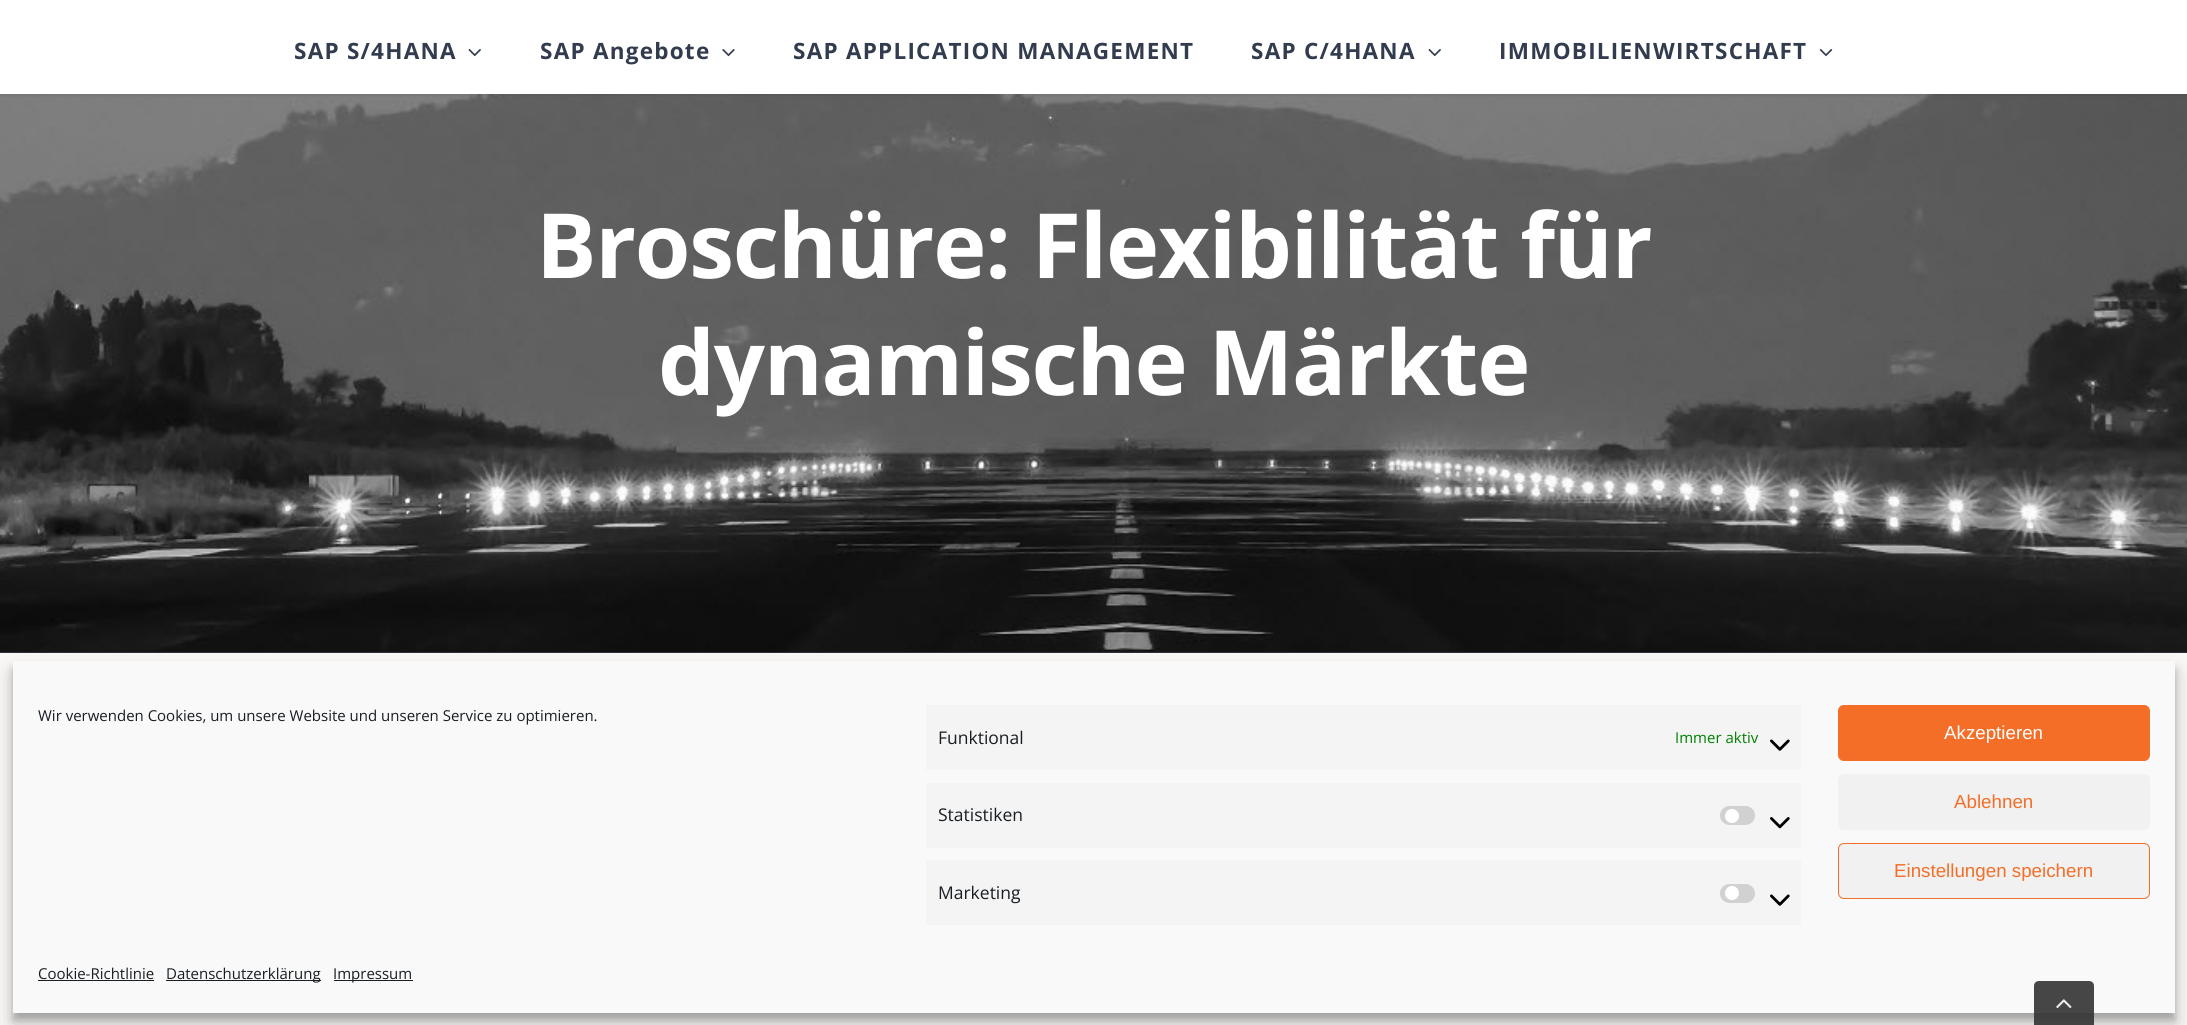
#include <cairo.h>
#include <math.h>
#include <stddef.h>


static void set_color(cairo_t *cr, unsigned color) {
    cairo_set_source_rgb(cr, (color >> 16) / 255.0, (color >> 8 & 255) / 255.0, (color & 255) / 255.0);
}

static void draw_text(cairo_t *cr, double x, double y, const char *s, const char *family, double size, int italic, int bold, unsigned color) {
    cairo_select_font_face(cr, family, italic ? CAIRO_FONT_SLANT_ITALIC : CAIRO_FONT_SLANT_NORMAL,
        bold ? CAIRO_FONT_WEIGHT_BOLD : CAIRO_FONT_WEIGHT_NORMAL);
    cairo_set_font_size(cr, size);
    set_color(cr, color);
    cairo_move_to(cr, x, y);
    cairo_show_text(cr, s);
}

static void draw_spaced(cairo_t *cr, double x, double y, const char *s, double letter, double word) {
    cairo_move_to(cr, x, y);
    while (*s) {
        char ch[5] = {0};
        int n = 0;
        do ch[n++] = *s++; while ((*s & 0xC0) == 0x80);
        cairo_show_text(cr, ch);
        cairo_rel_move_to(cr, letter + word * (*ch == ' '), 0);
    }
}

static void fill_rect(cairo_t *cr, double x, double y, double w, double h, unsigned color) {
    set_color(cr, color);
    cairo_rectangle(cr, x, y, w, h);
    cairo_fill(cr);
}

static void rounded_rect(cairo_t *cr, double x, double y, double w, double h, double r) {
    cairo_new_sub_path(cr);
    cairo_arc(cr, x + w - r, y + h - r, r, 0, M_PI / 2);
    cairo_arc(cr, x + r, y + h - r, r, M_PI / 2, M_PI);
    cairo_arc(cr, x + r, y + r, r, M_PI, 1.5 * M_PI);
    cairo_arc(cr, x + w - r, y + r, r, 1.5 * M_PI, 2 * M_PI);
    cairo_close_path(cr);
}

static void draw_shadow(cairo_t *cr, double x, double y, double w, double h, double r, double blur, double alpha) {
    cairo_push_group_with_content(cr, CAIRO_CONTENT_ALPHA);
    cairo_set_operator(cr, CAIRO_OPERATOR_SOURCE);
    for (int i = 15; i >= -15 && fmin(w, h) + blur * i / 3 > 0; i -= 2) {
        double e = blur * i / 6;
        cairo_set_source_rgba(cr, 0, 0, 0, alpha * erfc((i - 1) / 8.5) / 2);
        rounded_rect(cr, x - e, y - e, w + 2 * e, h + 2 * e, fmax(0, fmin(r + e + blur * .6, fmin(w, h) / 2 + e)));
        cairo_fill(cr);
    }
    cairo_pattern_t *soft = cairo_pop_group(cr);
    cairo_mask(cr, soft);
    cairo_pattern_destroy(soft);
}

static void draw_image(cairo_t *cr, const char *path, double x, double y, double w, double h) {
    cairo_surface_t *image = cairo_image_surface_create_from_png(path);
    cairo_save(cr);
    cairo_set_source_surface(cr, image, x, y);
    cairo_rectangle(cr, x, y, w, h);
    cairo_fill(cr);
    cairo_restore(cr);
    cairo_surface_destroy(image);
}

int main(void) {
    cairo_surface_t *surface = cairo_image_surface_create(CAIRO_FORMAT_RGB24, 2187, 1025);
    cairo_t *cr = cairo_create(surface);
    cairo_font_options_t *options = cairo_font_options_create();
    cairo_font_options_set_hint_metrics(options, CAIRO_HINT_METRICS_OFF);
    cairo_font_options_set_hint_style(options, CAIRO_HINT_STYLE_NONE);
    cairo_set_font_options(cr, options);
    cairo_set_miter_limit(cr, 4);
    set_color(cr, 0xFAF9F8);
    cairo_paint(cr);
    draw_image(cr, "assets/img4.png", 0, 94, 2187, 558);
    set_color(cr, 0x000000);
    draw_shadow(cr, 0, 1, 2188, 94, 0, 2, 0.12);
    fill_rect(cr, 0, 0, 2187, 94, 0xFFFFFF);
    cairo_select_font_face(cr, "Open Sans", CAIRO_FONT_SLANT_NORMAL, CAIRO_FONT_WEIGHT_BOLD);
    cairo_set_font_size(cr, 22.5);
    set_color(cr, 0x333C4E);
    draw_spaced(cr, 294, 59, "SAP S/4HANA", 1.25, 0);
    draw_image(cr, "assets/img1.png", 468, 49, 13, 8);
    draw_spaced(cr, 540, 59, "SAP Angebote", 1.25, 0);
    draw_image(cr, "assets/img2.png", 722, 49, 13, 8);
    draw_spaced(cr, 793, 59, "SAP APPLICATION MANAGEMENT", 1.25, 0);
    draw_spaced(cr, 1251, 59, "SAP C/4HANA", 1.25, 0);
    draw_image(cr, "assets/img1.png", 1428, 49, 13, 8);
    draw_spaced(cr, 1499, 59, "IMMOBILIENWIRTSCHAFT", 1.25, 0);
    draw_image(cr, "assets/img3.png", 1819, 49, 14, 8);
    fill_rect(cr, 0, 652, 2187, 1, 0x2C2F39);
    cairo_set_font_size(cr, 90);
    set_color(cr, 0xFFFFFF);
    draw_spaced(cr, 536, 278, "Broschüre: Flexibilität für", -1.25, 0);
    draw_spaced(cr, 658, 395, "dynamische Märkte", -1.25, 0);
    set_color(cr, 0x000000);
    draw_shadow(cr, 13, 669, 2162, 351, 0, 4, 0.23);
    draw_shadow(cr, 13, 674, 2162, 351, 0, 12.5, 0.19);
    fill_rect(cr, 13, 661, 2162, 352, 0xF9F9F9);
    draw_text(cr, 38, 721, "Wir verwenden Cookies, um unsere Website und unseren Service zu optimieren.", "Open Sans", 15, 0, 0, 0x191E23);
    fill_rect(cr, 926, 705, 875, 65, 0xF4F4F4);
    draw_text(cr, 938, 744, "Funktional", "Open Sans", 17.5, 0, 0, 0x191E23);
    draw_text(cr, 1675, 743, "Immer aktiv", "Open Sans", 15, 0, 0, 0x008000);
    draw_image(cr, "assets/img5.png", 1770, 739, 20, 12);
    fill_rect(cr, 926, 783, 875, 65, 0xF4F4F4);
    draw_text(cr, 938, 821, "Statistiken", "Open Sans", 17.5, 0, 0, 0x191E23);
    set_color(cr, 0xD1D1D1);
    rounded_rect(cr, 1720, 806, 35, 19, 9.5);
    cairo_fill(cr);
    set_color(cr, 0xFFFFFF);
    cairo_arc(cr, 1732, 816, 7, 0, 2 * M_PI);
    cairo_fill(cr);
    draw_image(cr, "assets/img6.png", 1770, 817, 20, 12);
    fill_rect(cr, 926, 860, 875, 65, 0xF4F4F4);
    draw_text(cr, 938, 899, "Marketing", "Open Sans", 17.5, 0, 0, 0x191E23);
    set_color(cr, 0xD1D1D1);
    rounded_rect(cr, 1720, 884, 35, 19, 9.5);
    cairo_fill(cr);
    set_color(cr, 0xFFFFFF);
    cairo_arc(cr, 1732, 893, 7, 0, 2 * M_PI);
    cairo_fill(cr);
    draw_image(cr, "assets/img5.png", 1770, 894, 20, 12);
    set_color(cr, 0xF56E28);
    rounded_rect(cr, 1838.5, 705.5, 311, 55, 5.5);
    cairo_fill_preserve(cr);
    cairo_set_line_width(cr, 1);
    cairo_stroke(cr);
    draw_text(cr, 1944, 739, "Akzeptieren", "Liberation Sans", 18.75, 0, 0, 0xFFFFFF);
    set_color(cr, 0xF1F1F1);
    rounded_rect(cr, 1838, 774, 312, 56, 6);
    cairo_fill(cr);
    draw_text(cr, 1954, 808, "Ablehnen", "Liberation Sans", 18.75, 0, 0, 0xF56E28);
    set_color(cr, 0xF1F1F1);
    rounded_rect(cr, 1838.5, 843.5, 311, 55, 5.5);
    cairo_fill_preserve(cr);
    set_color(cr, 0xF56E28);
    cairo_stroke(cr);
    draw_text(cr, 1894, 877, "Einstellungen speichern", "Liberation Sans", 18.75, 0, 0, 0xF56E28);
    draw_text(cr, 38, 979, "Cookie-Richtlinie", "Open Sans", 15, 0, 0, 0x191E23);
    fill_rect(cr, 38, 980, 116, 1, 0x191E23);
    fill_rect(cr, 166, 980, 155, 1, 0x191E23);
    draw_text(cr, 166, 979, "Datenschutzerklärung", "Open Sans", 15, 0, 0, 0x191E23);
    fill_rect(cr, 334, 980, 79, 1, 0x191E23);
    draw_text(cr, 333, 979, "Impressum", "Open Sans", 15, 0, 0, 0x191E23);
    cairo_set_source_rgba(cr, 0.2, 0.2, 0.2, 0.9);
    cairo_new_path(cr);
    cairo_move_to(cr, 2039, 981);
    cairo_line_to(cr, 2089, 981);
    cairo_curve_to(cr, 2092, 981, 2094, 983, 2094, 986);
    cairo_line_to(cr, 2094, 1025);
    cairo_line_to(cr, 2034, 1025);
    cairo_line_to(cr, 2034, 986);
    cairo_curve_to(cr, 2034, 983, 2036, 981, 2039, 981);
    cairo_close_path(cr);
    cairo_fill(cr);
    draw_image(cr, "assets/img7.png", 2056, 999, 16, 10);
    cairo_surface_write_to_png(surface, "output.png");
    cairo_font_options_destroy(options);
    cairo_destroy(cr);
    cairo_surface_destroy(surface);
    return 0;
}
